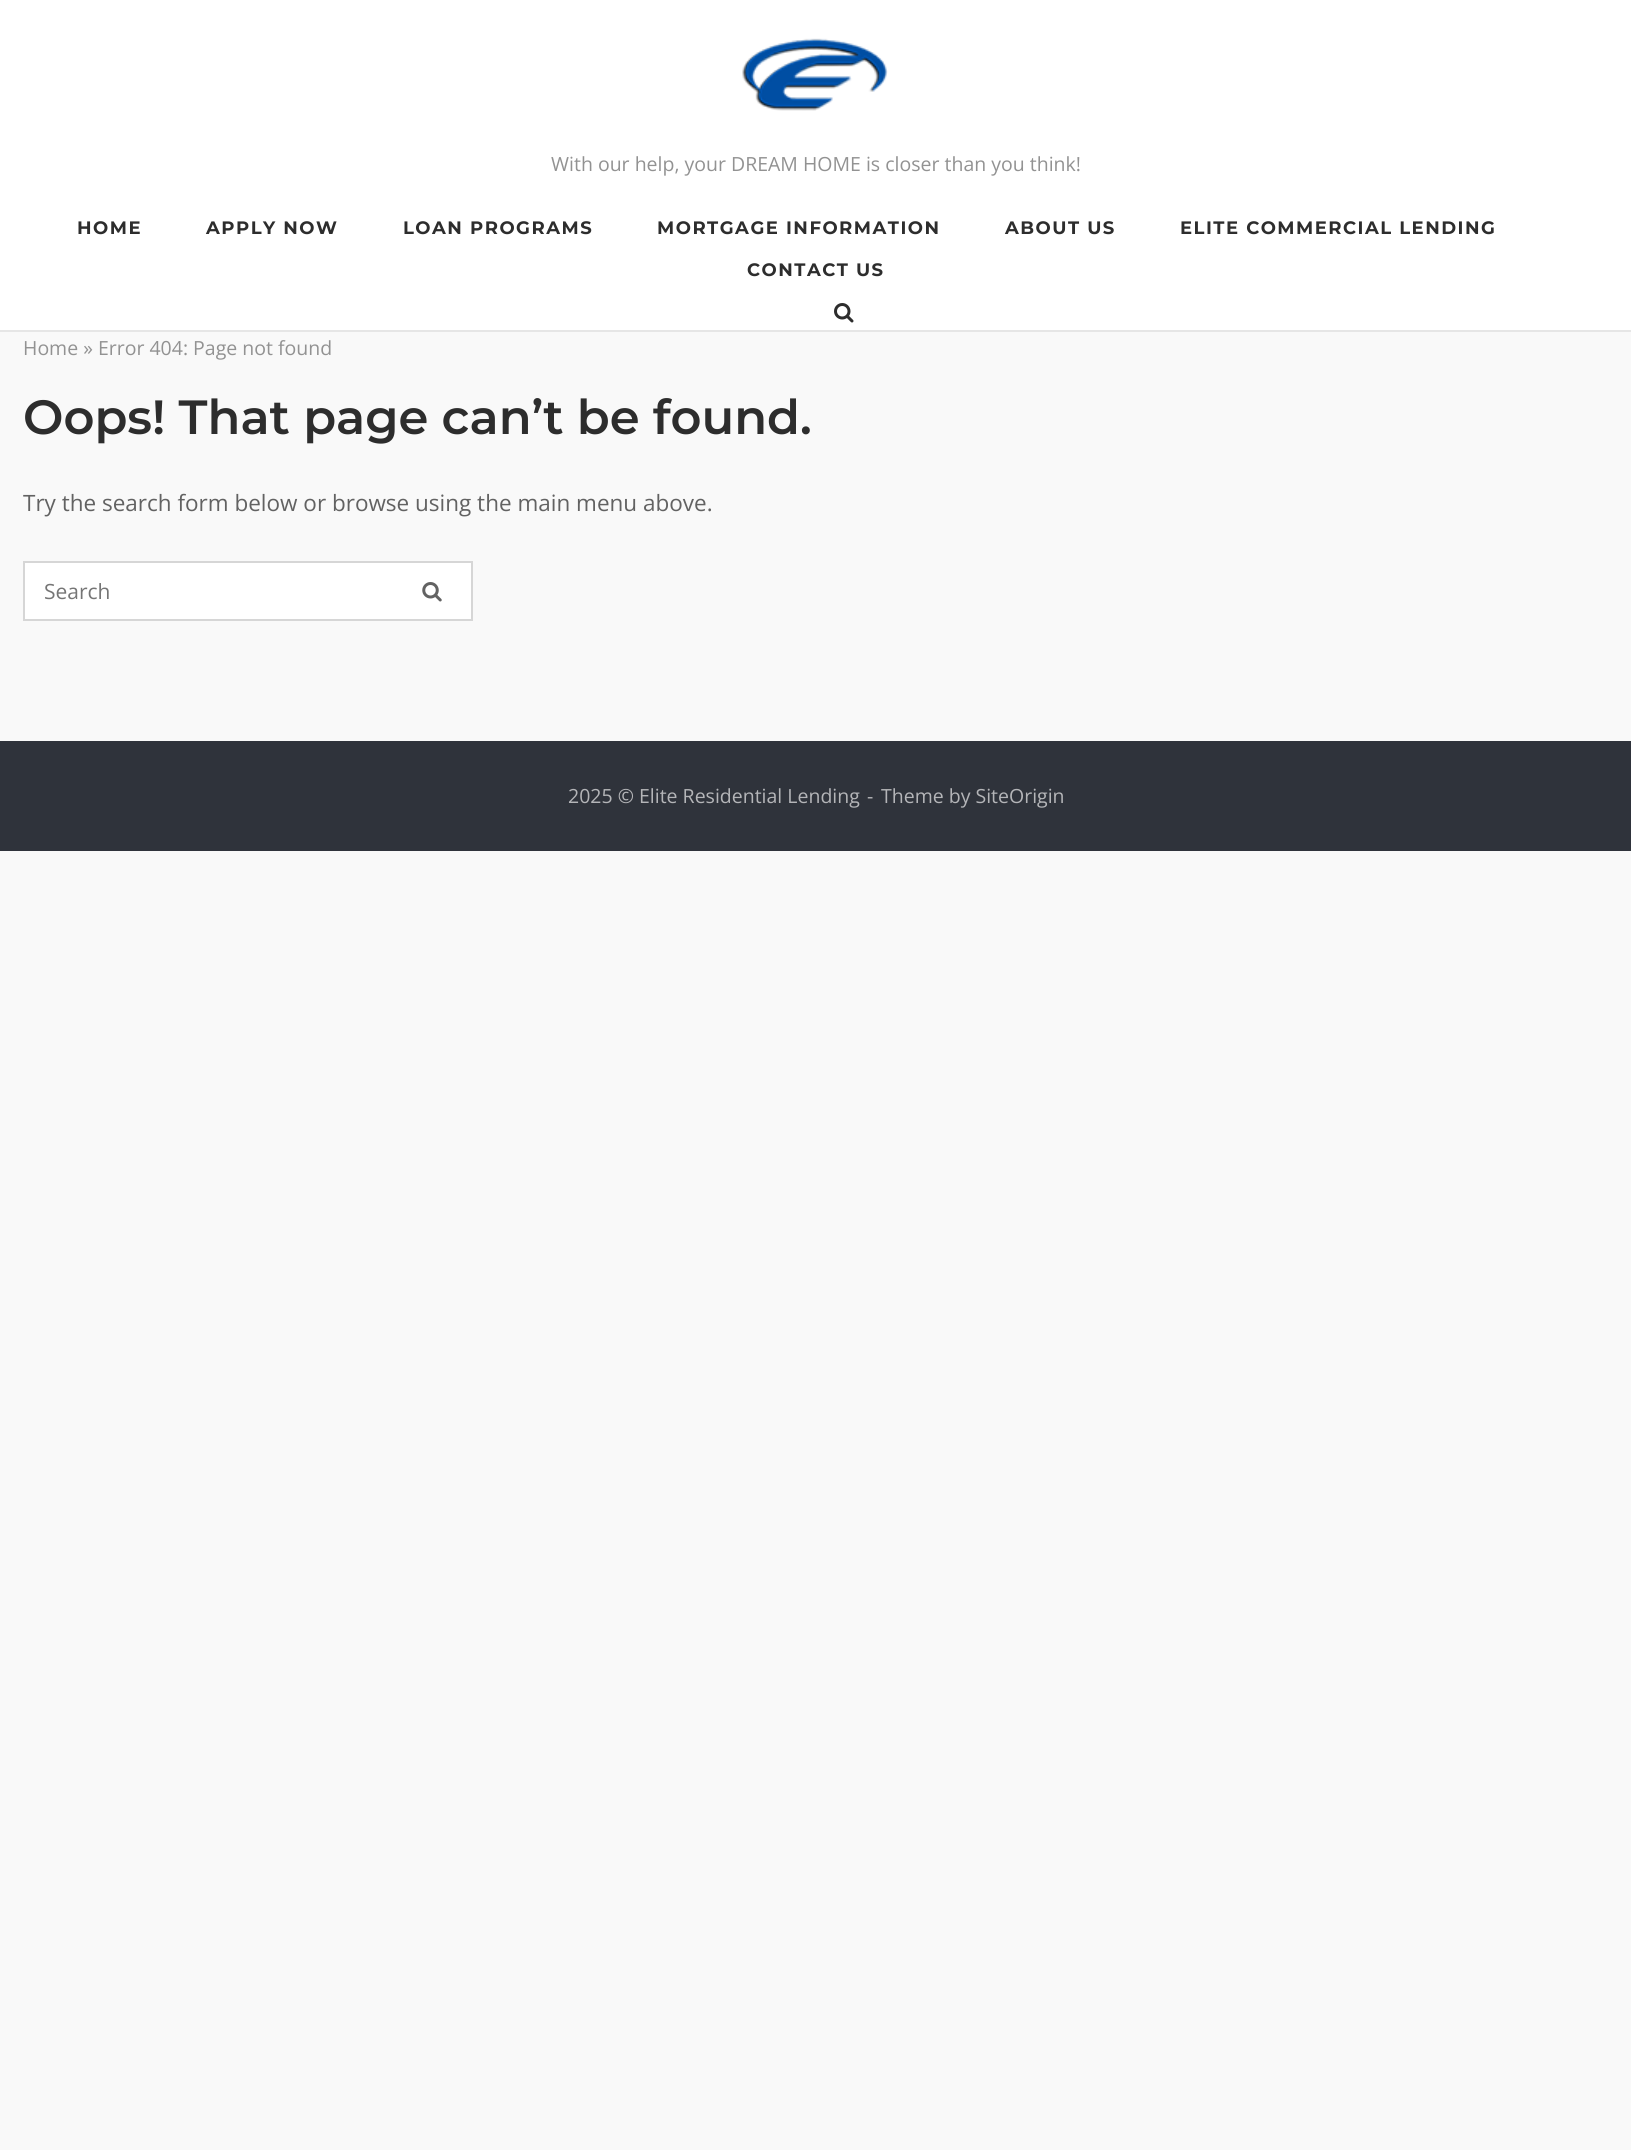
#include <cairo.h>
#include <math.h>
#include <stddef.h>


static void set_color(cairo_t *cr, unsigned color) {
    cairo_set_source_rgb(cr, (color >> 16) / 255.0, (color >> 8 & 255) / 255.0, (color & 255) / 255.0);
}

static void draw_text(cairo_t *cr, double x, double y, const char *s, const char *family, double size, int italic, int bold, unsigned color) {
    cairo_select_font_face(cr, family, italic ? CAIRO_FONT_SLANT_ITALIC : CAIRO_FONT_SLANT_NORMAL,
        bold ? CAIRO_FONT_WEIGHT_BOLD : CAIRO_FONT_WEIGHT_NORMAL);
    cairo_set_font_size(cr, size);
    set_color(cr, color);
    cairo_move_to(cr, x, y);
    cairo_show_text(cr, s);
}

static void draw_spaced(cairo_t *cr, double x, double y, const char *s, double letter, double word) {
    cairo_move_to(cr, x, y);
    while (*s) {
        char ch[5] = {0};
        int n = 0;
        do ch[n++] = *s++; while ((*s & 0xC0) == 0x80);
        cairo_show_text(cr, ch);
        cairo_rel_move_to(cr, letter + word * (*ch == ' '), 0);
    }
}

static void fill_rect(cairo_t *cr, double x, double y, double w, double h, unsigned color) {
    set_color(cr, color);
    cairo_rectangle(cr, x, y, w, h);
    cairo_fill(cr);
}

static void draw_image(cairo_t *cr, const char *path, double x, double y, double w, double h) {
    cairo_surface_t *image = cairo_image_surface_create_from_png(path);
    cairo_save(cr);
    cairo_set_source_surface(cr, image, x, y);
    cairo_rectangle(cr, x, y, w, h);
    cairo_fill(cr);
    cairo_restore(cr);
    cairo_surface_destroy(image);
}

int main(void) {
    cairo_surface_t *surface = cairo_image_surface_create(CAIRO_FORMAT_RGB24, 1631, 2150);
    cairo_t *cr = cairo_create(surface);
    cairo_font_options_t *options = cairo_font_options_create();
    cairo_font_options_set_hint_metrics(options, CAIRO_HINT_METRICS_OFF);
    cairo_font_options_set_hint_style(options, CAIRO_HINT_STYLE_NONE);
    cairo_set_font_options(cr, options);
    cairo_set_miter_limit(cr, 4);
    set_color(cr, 0xF9F9F9);
    cairo_paint(cr);
    fill_rect(cr, 0, 0, 1631, 330, 0xFFFFFF);
    fill_rect(cr, 0, 330, 1631, 2, 0xE6E6E6);
    draw_image(cr, "assets/img1.png", 742, 38, 146, 73);
    draw_text(cr, 551, 171, "With our help, your DREAM HOME is closer than you think!", "Open Sans", 19.5, 0, 0, 0x929292);
    cairo_select_font_face(cr, "Montserrat", CAIRO_FONT_SLANT_NORMAL, CAIRO_FONT_WEIGHT_BOLD);
    cairo_set_font_size(cr, 18);
    set_color(cr, 0x2D2D2D);
    draw_spaced(cr, 77, 234, "HOME", 1.5, 0);
    draw_spaced(cr, 206, 234, "APPLY NOW", 1.5, 0);
    draw_spaced(cr, 403, 234, "LOAN PROGRAMS", 1.5, 0);
    draw_spaced(cr, 657, 234, "MORTGAGE INFORMATION", 1.5, 0);
    draw_spaced(cr, 1005, 234, "ABOUT US", 1.5, 0);
    draw_spaced(cr, 1180, 234, "ELITE COMMERCIAL LENDING", 1.5, 0);
    draw_spaced(cr, 747, 276, "CONTACT US", 1.5, 0);
    draw_image(cr, "assets/img2.png", 834, 303, 20, 20);
    draw_text(cr, 23, 355, "Home » Error 404: Page not found", "Open Sans", 19.5, 0, 0, 0x929292);
    draw_text(cr, 23, 434, "Oops! That page can’t be found.", "Montserrat SemiBold", 48, 0, 0, 0x2D2D2D);
    draw_text(cr, 23, 511, "Try the search form below or browse using the main menu above.", "Open Sans", 22.5, 0, 0, 0x626262);
    set_color(cr, 0xFFFFFF);
    cairo_rectangle(cr, 24, 562, 448, 58);
    cairo_fill_preserve(cr);
    set_color(cr, 0xD6D6D6);
    cairo_stroke(cr);
    draw_text(cr, 44, 599, "Search", "Open Sans", 21, 0, 0, 0x757575);
    draw_image(cr, "assets/img3.png", 422, 582, 20, 20);
    fill_rect(cr, 0, 741, 1631, 110, 0x2F333B);
    draw_text(cr, 568, 803, "2025 © Elite Residential Lending", "Open Sans", 19.5, 0, 0, 0xB4B5B8);
    draw_text(cr, 867, 803, "-", "Open Sans", 19.5, 0, 0, 0xB4B5B8);
    draw_text(cr, 881, 803, "Theme by SiteOrigin", "Open Sans", 19.5, 0, 0, 0xB4B5B8);
    cairo_surface_write_to_png(surface, "output.png");
    cairo_font_options_destroy(options);
    cairo_destroy(cr);
    cairo_surface_destroy(surface);
    return 0;
}
